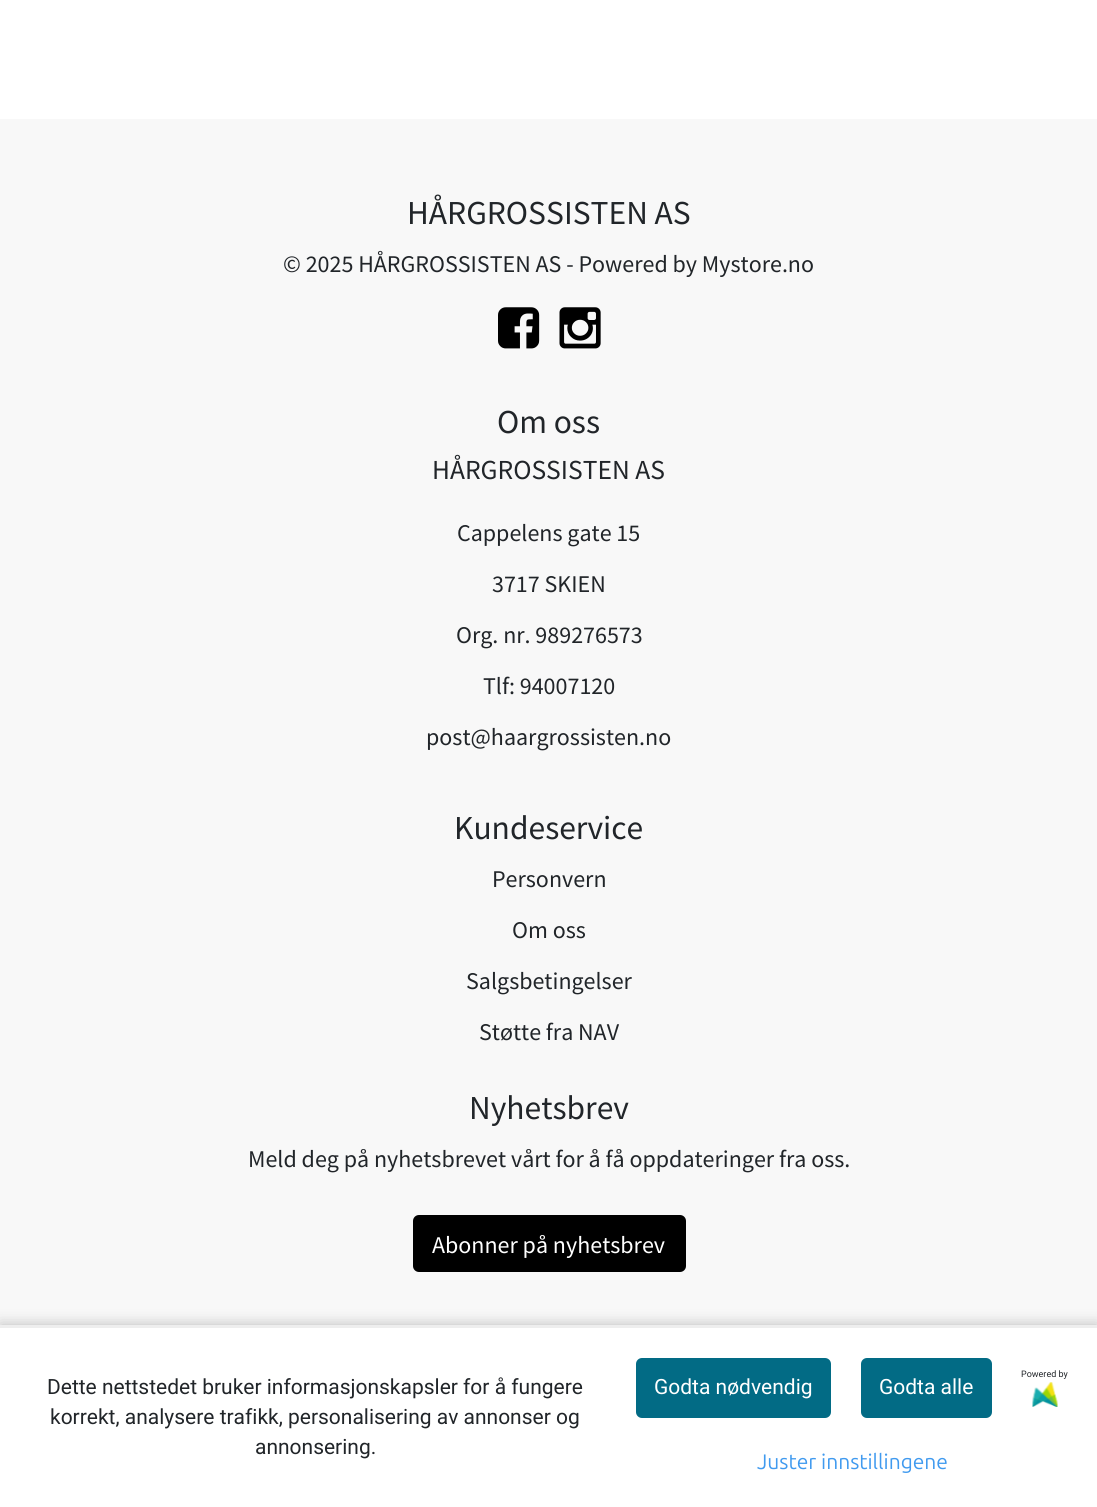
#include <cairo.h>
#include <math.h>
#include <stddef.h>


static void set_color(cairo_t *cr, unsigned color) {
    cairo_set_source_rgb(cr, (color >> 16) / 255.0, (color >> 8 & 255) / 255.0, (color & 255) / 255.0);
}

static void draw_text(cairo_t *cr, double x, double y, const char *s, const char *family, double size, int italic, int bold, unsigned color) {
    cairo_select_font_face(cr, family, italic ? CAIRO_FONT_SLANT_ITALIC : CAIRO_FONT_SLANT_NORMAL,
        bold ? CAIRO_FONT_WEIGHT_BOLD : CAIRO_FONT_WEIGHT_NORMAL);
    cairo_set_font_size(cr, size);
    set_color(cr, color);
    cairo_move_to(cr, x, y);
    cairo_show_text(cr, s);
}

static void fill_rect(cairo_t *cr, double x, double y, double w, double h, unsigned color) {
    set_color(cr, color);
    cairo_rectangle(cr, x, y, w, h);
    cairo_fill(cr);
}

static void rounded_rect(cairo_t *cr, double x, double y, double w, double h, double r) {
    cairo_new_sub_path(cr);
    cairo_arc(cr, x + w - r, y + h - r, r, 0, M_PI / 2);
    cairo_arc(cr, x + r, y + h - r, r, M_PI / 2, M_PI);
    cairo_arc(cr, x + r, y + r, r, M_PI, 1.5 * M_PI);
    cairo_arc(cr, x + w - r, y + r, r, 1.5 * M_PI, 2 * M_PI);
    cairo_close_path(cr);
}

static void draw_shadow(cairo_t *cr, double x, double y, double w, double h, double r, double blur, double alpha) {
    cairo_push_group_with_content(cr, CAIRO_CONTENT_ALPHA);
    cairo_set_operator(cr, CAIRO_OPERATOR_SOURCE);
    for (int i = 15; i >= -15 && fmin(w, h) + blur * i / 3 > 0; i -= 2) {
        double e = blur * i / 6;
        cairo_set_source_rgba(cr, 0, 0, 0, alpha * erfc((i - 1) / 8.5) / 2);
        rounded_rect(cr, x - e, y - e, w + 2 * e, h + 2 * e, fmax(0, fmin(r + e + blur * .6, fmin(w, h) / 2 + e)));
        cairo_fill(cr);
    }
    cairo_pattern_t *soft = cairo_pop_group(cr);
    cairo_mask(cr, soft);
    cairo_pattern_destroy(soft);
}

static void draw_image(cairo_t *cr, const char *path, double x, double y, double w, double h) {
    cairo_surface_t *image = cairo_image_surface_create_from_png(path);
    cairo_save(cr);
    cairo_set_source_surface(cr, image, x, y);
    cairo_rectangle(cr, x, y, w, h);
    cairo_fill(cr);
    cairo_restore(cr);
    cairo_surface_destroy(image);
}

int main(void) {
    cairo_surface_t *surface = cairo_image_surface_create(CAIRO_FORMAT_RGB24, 1097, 1507);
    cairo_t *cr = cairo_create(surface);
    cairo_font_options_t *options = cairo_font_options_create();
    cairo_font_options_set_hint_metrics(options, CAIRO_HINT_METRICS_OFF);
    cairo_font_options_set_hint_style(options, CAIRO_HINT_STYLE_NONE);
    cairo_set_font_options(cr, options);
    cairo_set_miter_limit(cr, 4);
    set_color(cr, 0xFFFFFF);
    cairo_paint(cr);
    fill_rect(cr, 0, 119, 1097, 1206, 0xF8F8F8);
    draw_text(cr, 407, 224, "HÅRGROSSISTEN AS", "Source Sans Pro", 33.5, 0, 0, 0x212529);
    draw_text(cr, 283, 272, "© 2025 HÅRGROSSISTEN AS - Powered by Mystore.no", "Source Sans Pro", 24, 0, 0, 0x212529);
    draw_image(cr, "assets/img1.png", 498, 307, 42, 42);
    draw_image(cr, "assets/img2.png", 559, 307, 42, 42);
    draw_text(cr, 497, 433, "Om oss", "Source Sans Pro", 33.5, 0, 0, 0x212529);
    draw_text(cr, 432, 479, "HÅRGROSSISTEN AS", "Source Sans Pro", 27.5, 0, 0, 0x212529);
    draw_text(cr, 457, 541, "Cappelens gate 15", "Source Sans Pro", 24, 0, 0, 0x212529);
    draw_text(cr, 492, 592, "3717 SKIEN", "Source Sans Pro", 24, 0, 0, 0x212529);
    draw_text(cr, 456, 643, "Org. nr. 989276573", "Source Sans Pro", 24, 0, 0, 0x212529);
    draw_text(cr, 483, 694, "Tlf: 94007120", "Source Sans Pro", 24, 0, 0, 0x212529);
    draw_text(cr, 426, 745, "post@haargrossisten.no", "Source Sans Pro", 24, 0, 0, 0x212529);
    draw_text(cr, 454, 839, "Kundeservice", "Source Sans Pro", 33.5, 0, 0, 0x212529);
    draw_text(cr, 492, 887, "Personvern", "Source Sans Pro", 24, 0, 0, 0x212529);
    draw_text(cr, 512, 938, "Om oss", "Source Sans Pro", 24, 0, 0, 0x212529);
    draw_text(cr, 466, 989, "Salgsbetingelser", "Source Sans Pro", 24, 0, 0, 0x212529);
    draw_text(cr, 479, 1040, "Støtte fra NAV", "Source Sans Pro", 24, 0, 0, 0x212529);
    draw_text(cr, 469, 1119, "Nyhetsbrev", "Source Sans Pro", 33.5, 0, 0, 0x212529);
    draw_text(cr, 248, 1167, "Meld deg på nyhetsbrevet vårt for å få oppdateringer fra oss.", "Source Sans Pro", 24, 0, 0, 0x212529);
    set_color(cr, 0x000000);
    rounded_rect(cr, 414, 1216, 271, 55, 5);
    cairo_fill_preserve(cr);
    cairo_stroke(cr);
    draw_text(cr, 432, 1253, "Abonner på nyhetsbrev", "Source Sans Pro", 24, 0, 0, 0xFFFFFF);
    set_color(cr, 0x000000);
    draw_shadow(cr, 0, 1325, 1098, 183, 0, 7.5, 0.25);
    fill_rect(cr, 0, 1328, 1097, 179, 0xFFFFFF);
    fill_rect(cr, 0, 1325, 1097, 3, 0xEEEEEE);
    draw_text(cr, 47, 1394, "Dette nettstedet bruker informasjonskapsler for å fungere", "Roboto", 21, 0, 0, 0x212529);
    draw_text(cr, 50, 1424, "korrekt, analysere trafikk, personalisering av annonser og", "Roboto", 21, 0, 0, 0x212529);
    draw_text(cr, 255, 1454, "annonsering.", "Roboto", 21, 0, 0, 0x212529);
    draw_text(cr, 1021, 1377, "Powered by", "Roboto", 9, 0, 0, 0x212529);
    draw_image(cr, "assets/img3.png", 1032, 1382, 26, 25);
    set_color(cr, 0x026B85);
    rounded_rect(cr, 636, 1358, 195, 60, 6);
    cairo_fill(cr);
    draw_text(cr, 654, 1394, "Godta nødvendig", "Roboto", 21, 0, 0, 0xFFFFFF);
    set_color(cr, 0x026B85);
    rounded_rect(cr, 861, 1358, 131, 60, 6);
    cairo_fill(cr);
    draw_text(cr, 879, 1394, "Godta alle", "Roboto", 21, 0, 0, 0xFFFFFF);
    draw_text(cr, 757, 1469, "Juster innstillingene", "Ubuntu", 21, 0, 0, 0x409AEF);
    cairo_surface_write_to_png(surface, "output.png");
    cairo_font_options_destroy(options);
    cairo_destroy(cr);
    cairo_surface_destroy(surface);
    return 0;
}
